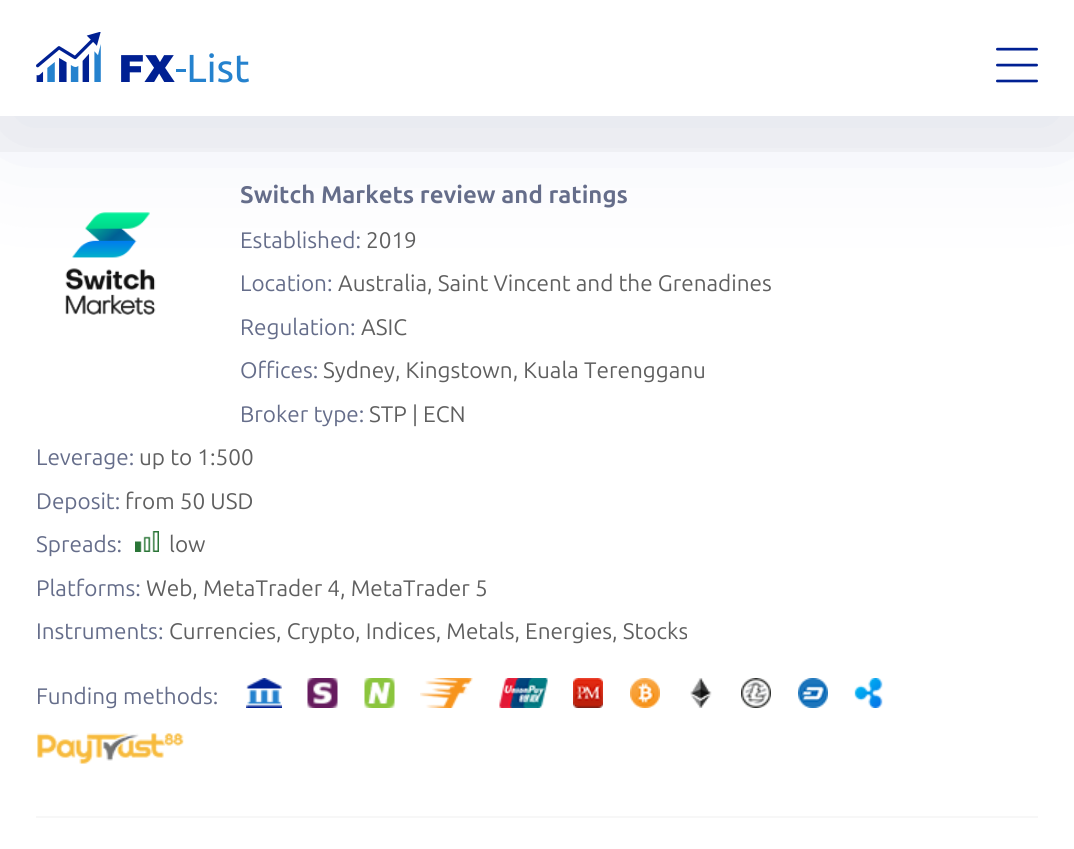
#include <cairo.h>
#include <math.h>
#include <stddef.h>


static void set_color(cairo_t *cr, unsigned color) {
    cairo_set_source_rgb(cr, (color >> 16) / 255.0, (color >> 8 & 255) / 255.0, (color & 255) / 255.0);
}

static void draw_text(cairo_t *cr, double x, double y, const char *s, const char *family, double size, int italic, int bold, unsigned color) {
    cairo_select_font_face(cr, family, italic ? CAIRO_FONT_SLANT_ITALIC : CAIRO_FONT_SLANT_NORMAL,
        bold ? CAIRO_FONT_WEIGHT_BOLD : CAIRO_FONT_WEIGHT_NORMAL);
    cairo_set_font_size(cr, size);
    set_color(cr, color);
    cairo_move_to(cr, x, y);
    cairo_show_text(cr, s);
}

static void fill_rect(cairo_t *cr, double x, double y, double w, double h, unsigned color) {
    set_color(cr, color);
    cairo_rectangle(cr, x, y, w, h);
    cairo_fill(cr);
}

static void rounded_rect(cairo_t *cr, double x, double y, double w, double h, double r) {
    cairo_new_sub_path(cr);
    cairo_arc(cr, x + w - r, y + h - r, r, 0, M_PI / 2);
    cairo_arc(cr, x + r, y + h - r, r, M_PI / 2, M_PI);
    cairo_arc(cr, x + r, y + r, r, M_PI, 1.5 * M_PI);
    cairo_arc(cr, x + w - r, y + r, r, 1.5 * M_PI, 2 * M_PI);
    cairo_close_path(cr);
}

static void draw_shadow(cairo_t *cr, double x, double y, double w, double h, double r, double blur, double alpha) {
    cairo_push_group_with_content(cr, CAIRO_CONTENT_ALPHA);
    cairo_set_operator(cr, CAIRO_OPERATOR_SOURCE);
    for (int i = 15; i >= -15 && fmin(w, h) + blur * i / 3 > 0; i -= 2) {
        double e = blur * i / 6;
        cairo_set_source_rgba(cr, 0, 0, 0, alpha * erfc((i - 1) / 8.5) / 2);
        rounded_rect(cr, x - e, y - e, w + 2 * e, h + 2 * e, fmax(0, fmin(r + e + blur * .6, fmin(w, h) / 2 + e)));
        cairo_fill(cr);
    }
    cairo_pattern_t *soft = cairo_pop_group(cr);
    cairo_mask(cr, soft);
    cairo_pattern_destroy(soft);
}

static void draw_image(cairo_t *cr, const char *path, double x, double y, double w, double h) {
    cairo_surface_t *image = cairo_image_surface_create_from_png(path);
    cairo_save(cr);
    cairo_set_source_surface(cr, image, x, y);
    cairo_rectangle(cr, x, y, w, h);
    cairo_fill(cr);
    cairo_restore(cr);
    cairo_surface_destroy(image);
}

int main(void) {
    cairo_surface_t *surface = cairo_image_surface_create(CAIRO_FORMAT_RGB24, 1074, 849);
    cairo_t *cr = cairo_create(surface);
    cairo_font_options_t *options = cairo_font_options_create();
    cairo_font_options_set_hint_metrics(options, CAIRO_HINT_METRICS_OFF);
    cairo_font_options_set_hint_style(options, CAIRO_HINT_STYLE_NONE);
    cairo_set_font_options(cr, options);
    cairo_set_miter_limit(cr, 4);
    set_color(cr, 0xF7F7F7);
    cairo_paint(cr);
    fill_rect(cr, 0, 152, 1074, 697, 0xFFFFFF);
    draw_image(cr, "assets/img16.png", 65, 212, 91, 103);
    set_color(cr, 0x002093);
    draw_shadow(cr, 0, 23, 1074, 115, 0, 60, 0.09);
    fill_rect(cr, 0, 0, 1074, 116, 0xFFFFFF);
    draw_image(cr, "assets/img1.png", 36, 32, 213, 51);
    draw_image(cr, "assets/img2.png", 996, 47, 42, 36);
    fill_rect(cr, 36, 816, 1002, 2, 0xF7F7F7);
    draw_text(cr, 240, 203, "Switch Markets review and ratings", "Ubuntu", 24, 0, 1, 0x656D8A);
    draw_text(cr, 240, 248, "Established:", "Ubuntu", 22.5, 0, 0, 0x656D8A);
    draw_text(cr, 366, 248, "2019", "Ubuntu", 22.5, 0, 0, 0x5F5F5F);
    draw_text(cr, 240, 291, "Location:", "Ubuntu", 22.5, 0, 0, 0x656D8A);
    draw_text(cr, 338, 291, "Australia, Saint Vincent and the Grenadines", "Ubuntu", 22.5, 0, 0, 0x5F5F5F);
    draw_text(cr, 240, 335, "Regulation:", "Ubuntu", 22.5, 0, 0, 0x656D8A);
    draw_text(cr, 361, 335, "ASIC", "Ubuntu", 22.5, 0, 0, 0x5F5F5F);
    draw_text(cr, 240, 378, "Offices:", "Ubuntu", 22.5, 0, 0, 0x656D8A);
    draw_text(cr, 323, 378, "Sydney, Kingstown, Kuala Terengganu", "Ubuntu", 22.5, 0, 0, 0x5F5F5F);
    draw_text(cr, 240, 422, "Broker type:", "Ubuntu", 22.5, 0, 0, 0x656D8A);
    draw_text(cr, 369, 422, "STP | ECN", "Ubuntu", 22.5, 0, 0, 0x5F5F5F);
    draw_text(cr, 36, 465, "Leverage:", "Ubuntu", 22.5, 0, 0, 0x656D8A);
    draw_text(cr, 139, 465, "up to 1:500", "Ubuntu", 22.5, 0, 0, 0x5F5F5F);
    draw_text(cr, 36, 509, "Deposit:", "Ubuntu", 22.5, 0, 0, 0x656D8A);
    draw_text(cr, 125, 509, "from 50 USD", "Ubuntu", 22.5, 0, 0, 0x5F5F5F);
    draw_text(cr, 36, 552, "Spreads:", "Ubuntu", 22.5, 0, 0, 0x656D8A);
    draw_image(cr, "assets/img3.png", 135, 531, 24, 21);
    draw_text(cr, 169, 552, "low", "Ubuntu", 22.5, 0, 0, 0x5F5F5F);
    draw_text(cr, 36, 596, "Platforms:", "Ubuntu", 22.5, 0, 0, 0x656D8A);
    draw_text(cr, 146, 596, "Web, MetaTrader 4, MetaTrader 5", "Ubuntu", 22.5, 0, 0, 0x5F5F5F);
    draw_text(cr, 36, 639, "Instruments:", "Ubuntu", 22.5, 0, 0, 0x656D8A);
    draw_text(cr, 169, 639, "Currencies, Crypto, Indices, Metals, Energies, Stocks", "Ubuntu", 22.5, 0, 0, 0x5F5F5F);
    draw_text(cr, 36, 704, "Funding methods:", "Ubuntu", 22.5, 0, 0, 0x656D8A);
    draw_image(cr, "assets/img4.png", 246, 678, 36, 30);
    draw_image(cr, "assets/img5.png", 307, 678, 31, 30);
    draw_image(cr, "assets/img6.png", 364, 678, 31, 30);
    draw_image(cr, "assets/img7.png", 420, 678, 53, 30);
    draw_image(cr, "assets/img8.png", 499, 678, 49, 30);
    draw_image(cr, "assets/img9.png", 573, 678, 30, 30);
    draw_image(cr, "assets/img10.png", 630, 678, 30, 30);
    draw_image(cr, "assets/img11.png", 690, 678, 22, 30);
    draw_image(cr, "assets/img12.png", 741, 678, 30, 30);
    draw_image(cr, "assets/img13.png", 798, 678, 30, 30);
    draw_image(cr, "assets/img14.png", 854, 678, 29, 30);
    draw_image(cr, "assets/img15.png", 37, 733, 147, 31);
    cairo_surface_write_to_png(surface, "output.png");
    cairo_font_options_destroy(options);
    cairo_destroy(cr);
    cairo_surface_destroy(surface);
    return 0;
}
